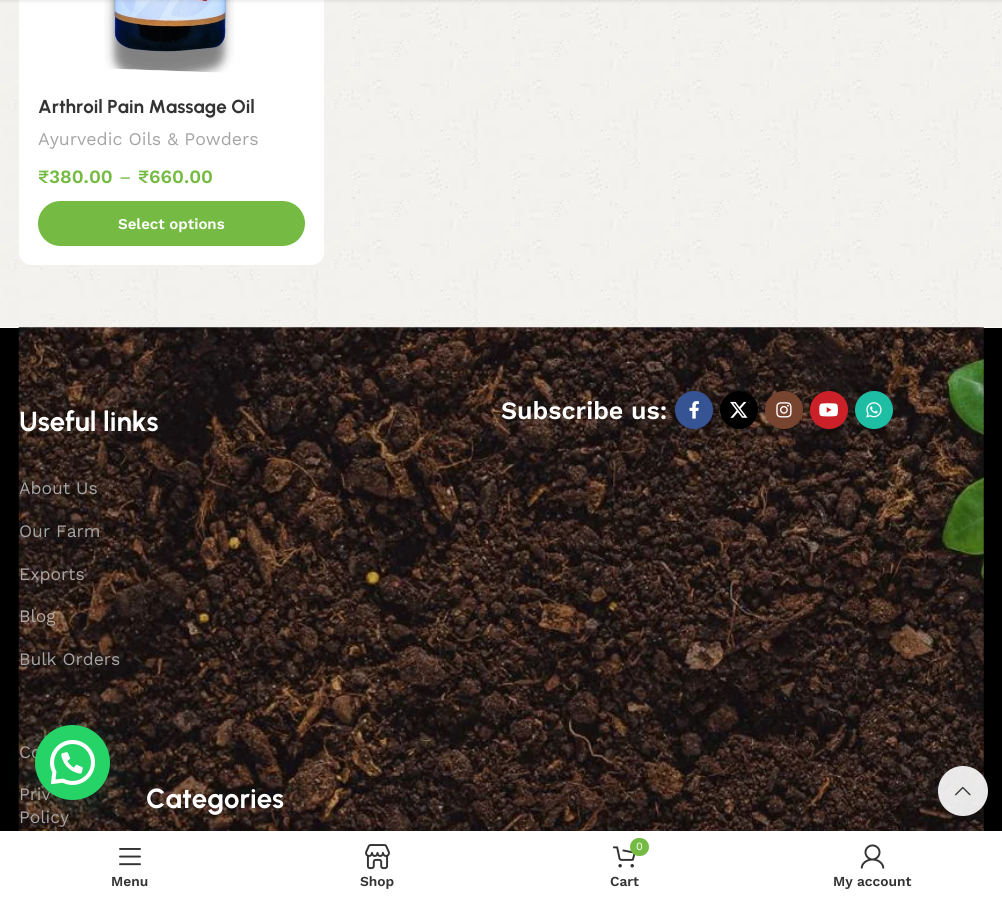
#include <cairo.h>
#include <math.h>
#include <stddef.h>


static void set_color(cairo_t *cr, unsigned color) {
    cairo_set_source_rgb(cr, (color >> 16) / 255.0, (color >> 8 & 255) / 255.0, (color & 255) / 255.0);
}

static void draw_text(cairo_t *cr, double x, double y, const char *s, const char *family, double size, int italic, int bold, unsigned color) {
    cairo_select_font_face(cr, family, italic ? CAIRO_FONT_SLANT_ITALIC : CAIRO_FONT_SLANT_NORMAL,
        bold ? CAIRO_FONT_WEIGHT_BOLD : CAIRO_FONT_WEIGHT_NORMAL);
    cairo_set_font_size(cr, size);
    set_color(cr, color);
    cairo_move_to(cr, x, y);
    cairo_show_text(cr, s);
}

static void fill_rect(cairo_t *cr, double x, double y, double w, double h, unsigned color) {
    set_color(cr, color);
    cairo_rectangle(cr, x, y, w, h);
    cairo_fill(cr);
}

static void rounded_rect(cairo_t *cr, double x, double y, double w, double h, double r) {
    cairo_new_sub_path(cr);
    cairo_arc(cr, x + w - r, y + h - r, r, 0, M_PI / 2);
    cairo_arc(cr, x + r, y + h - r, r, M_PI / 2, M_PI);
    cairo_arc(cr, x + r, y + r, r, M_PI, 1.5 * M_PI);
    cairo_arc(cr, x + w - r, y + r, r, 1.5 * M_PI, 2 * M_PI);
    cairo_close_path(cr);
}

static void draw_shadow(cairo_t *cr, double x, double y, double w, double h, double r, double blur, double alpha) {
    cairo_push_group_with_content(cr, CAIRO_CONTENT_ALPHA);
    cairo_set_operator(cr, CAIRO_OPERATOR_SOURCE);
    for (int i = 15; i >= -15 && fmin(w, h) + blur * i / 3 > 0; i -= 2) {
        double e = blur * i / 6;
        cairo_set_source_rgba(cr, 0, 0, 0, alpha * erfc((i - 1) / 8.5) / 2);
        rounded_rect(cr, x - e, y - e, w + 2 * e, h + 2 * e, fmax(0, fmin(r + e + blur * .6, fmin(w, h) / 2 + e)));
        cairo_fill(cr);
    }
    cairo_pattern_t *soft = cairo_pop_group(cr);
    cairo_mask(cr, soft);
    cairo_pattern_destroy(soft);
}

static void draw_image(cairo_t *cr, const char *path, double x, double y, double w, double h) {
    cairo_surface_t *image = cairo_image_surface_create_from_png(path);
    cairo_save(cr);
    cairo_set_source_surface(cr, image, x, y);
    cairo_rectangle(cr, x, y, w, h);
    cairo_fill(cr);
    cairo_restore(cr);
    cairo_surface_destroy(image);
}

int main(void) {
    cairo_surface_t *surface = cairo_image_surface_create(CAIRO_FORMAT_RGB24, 1002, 900);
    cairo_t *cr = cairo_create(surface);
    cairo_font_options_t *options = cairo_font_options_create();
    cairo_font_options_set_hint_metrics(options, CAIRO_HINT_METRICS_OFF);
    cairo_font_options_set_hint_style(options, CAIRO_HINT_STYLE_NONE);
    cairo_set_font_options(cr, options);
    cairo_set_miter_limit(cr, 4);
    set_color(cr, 0xFFFFFF);
    cairo_paint(cr);
    draw_image(cr, "assets/img1.png", 0, 0, 1002, 328);
    set_color(cr, 0xFFFFFF);
    rounded_rect(cr, 19, -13, 305, 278, 13);
    cairo_fill(cr);
    draw_image(cr, "assets/img2.png", 104, 0, 130, 73);
    set_color(cr, 0x000000);
    draw_shadow(cr, 0, -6, 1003, 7, 0, 2, 0.1);
    set_color(cr, 0xFFFFFF);
    cairo_new_path(cr);
    cairo_move_to(cr, 19, 79);
    cairo_line_to(cr, 324, 79);
    cairo_line_to(cr, 324, 252);
    cairo_curve_to(cr, 324, 259, 318, 265, 311, 265);
    cairo_line_to(cr, 32, 265);
    cairo_curve_to(cr, 25, 265, 19, 259, 19, 252);
    cairo_close_path(cr);
    cairo_fill(cr);
    draw_text(cr, 38, 113, "Arthroil Pain Massage Oil", "Urbanist", 18.75, 0, 1, 0x333333);
    draw_text(cr, 38, 145, "Ayurvedic Oils & Powders", "Work Sans", 17.75, 0, 0, 0xA5A5A5);
    draw_text(cr, 38, 183, "₹380.00", "Work Sans SemiBold", 18.75, 0, 0, 0x75BB43);
    draw_text(cr, 119, 183, "–", "Work Sans", 18.75, 0, 0, 0x75BB43);
    draw_text(cr, 138, 183, "₹660.00", "Work Sans SemiBold", 18.75, 0, 0, 0x75BB43);
    rounded_rect(cr, 38, 201, 267, 45, 22.5);
    cairo_fill(cr);
    draw_text(cr, 118, 229, "Select options", "Work Sans SemiBold", 15, 0, 0, 0xFFFFFF);
    fill_rect(cr, 0, 328, 1002, 503, 0x000000);
    draw_image(cr, "assets/img3.png", 18, 327, 966, 504);
    draw_text(cr, 19, 431, "Useful links", "Urbanist", 27.5, 0, 1, 0xFFFFFF);
    draw_text(cr, 19, 494, "About Us", "Work Sans", 17.5, 0, 0, 0xA5A5A5);
    draw_text(cr, 19, 537, "Our Farm", "Work Sans", 17.5, 0, 0, 0xA5A5A5);
    draw_text(cr, 19, 580, "Exports", "Work Sans", 17.5, 0, 0, 0xABA6A4);
    draw_text(cr, 19, 622, "Blog", "Work Sans", 17.5, 0, 0, 0xB3AAA6);
    draw_text(cr, 19, 665, "Bulk Orders", "Work Sans", 17.5, 0, 0, 0xA5A5A5);
    draw_text(cr, 19, 758, "Co", "Work Sans", 17.5, 0, 0, 0xABA6A4);
    draw_text(cr, 19, 800, "Priv", "Work Sans", 17.5, 0, 0, 0xB3AAA6);
    draw_text(cr, 19, 823, "Policy", "Work Sans", 17.5, 0, 0, 0xABA6A4);
    draw_text(cr, 146, 808, "Categories", "Urbanist", 27.5, 0, 1, 0xFFFFFF);
    draw_text(cr, 501, 419, "Subscribe us:", "Work Sans SemiBold", 25, 0, 0, 0xFFFFFF);
    set_color(cr, 0x365493);
    cairo_new_path(cr);
    cairo_arc(cr, 694, 410, 19, 0, 2 * M_PI);
    cairo_fill(cr);
    draw_image(cr, "assets/img4.png", 689, 401, 10, 18);
    set_color(cr, 0x000000);
    cairo_arc(cr, 739, 410, 19, 0, 2 * M_PI);
    cairo_fill(cr);
    draw_image(cr, "assets/img5.png", 730, 401, 18, 17);
    set_color(cr, 0x774430);
    cairo_arc(cr, 784, 410, 19, 0, 2 * M_PI);
    cairo_fill(cr);
    draw_image(cr, "assets/img6.png", 776, 402, 16, 16);
    set_color(cr, 0xCB2027);
    cairo_arc(cr, 829, 410, 19, 0, 2 * M_PI);
    cairo_fill(cr);
    draw_image(cr, "assets/img7.png", 819, 403, 19, 14);
    set_color(cr, 0x1EBEA5);
    cairo_arc(cr, 874, 410, 19, 0, 2 * M_PI);
    cairo_fill(cr);
    draw_image(cr, "assets/img8.png", 866, 402, 16, 16);
    cairo_set_source_rgba(cr, 1, 1, 1, 0.9);
    cairo_arc(cr, 963, 791, 25, 0, 2 * M_PI);
    cairo_fill(cr);
    set_color(cr, 0x000000);
    draw_shadow(cr, 0, 831, 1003, 69, 0, 5.5, 0.12);
    fill_rect(cr, 0, 831, 1002, 69, 0xFFFFFF);
    draw_image(cr, "assets/img11.png", 119, 848, 22, 18);
    set_color(cr, 0x075E54);
    draw_shadow(cr, 36, 733, 75, 75, 37.5, 15, 0.24);
    set_color(cr, 0x25D366);
    cairo_arc(cr, 72.5, 762.5, 37.5, 0, 2 * M_PI);
    cairo_fill(cr);
    draw_image(cr, "assets/img9.png", 50, 740, 45, 45);
    draw_image(cr, "assets/img10.png", 955, 786, 16, 10);
    draw_text(cr, 111, 886, "Menu", "Work Sans SemiBold", 13.75, 0, 0, 0x333333);
    draw_image(cr, "assets/img12.png", 365, 844, 25, 26);
    draw_text(cr, 360, 886, "Shop", "Work Sans SemiBold", 13.75, 0, 0, 0x333333);
    draw_image(cr, "assets/img13.png", 612, 846, 24, 22);
    set_color(cr, 0x75BB43);
    rounded_rect(cr, 630, 838, 19, 18, 9);
    cairo_fill(cr);
    draw_text(cr, 636, 850, "0", "Work Sans", 11, 0, 0, 0xFFFFFF);
    draw_text(cr, 610, 886, "Cart", "Work Sans SemiBold", 13.75, 0, 0, 0x333333);
    draw_image(cr, "assets/img14.png", 860, 844, 25, 25);
    draw_text(cr, 833, 886, "My account", "Work Sans SemiBold", 13.75, 0, 0, 0x333333);
    cairo_surface_write_to_png(surface, "output.png");
    cairo_font_options_destroy(options);
    cairo_destroy(cr);
    cairo_surface_destroy(surface);
    return 0;
}
